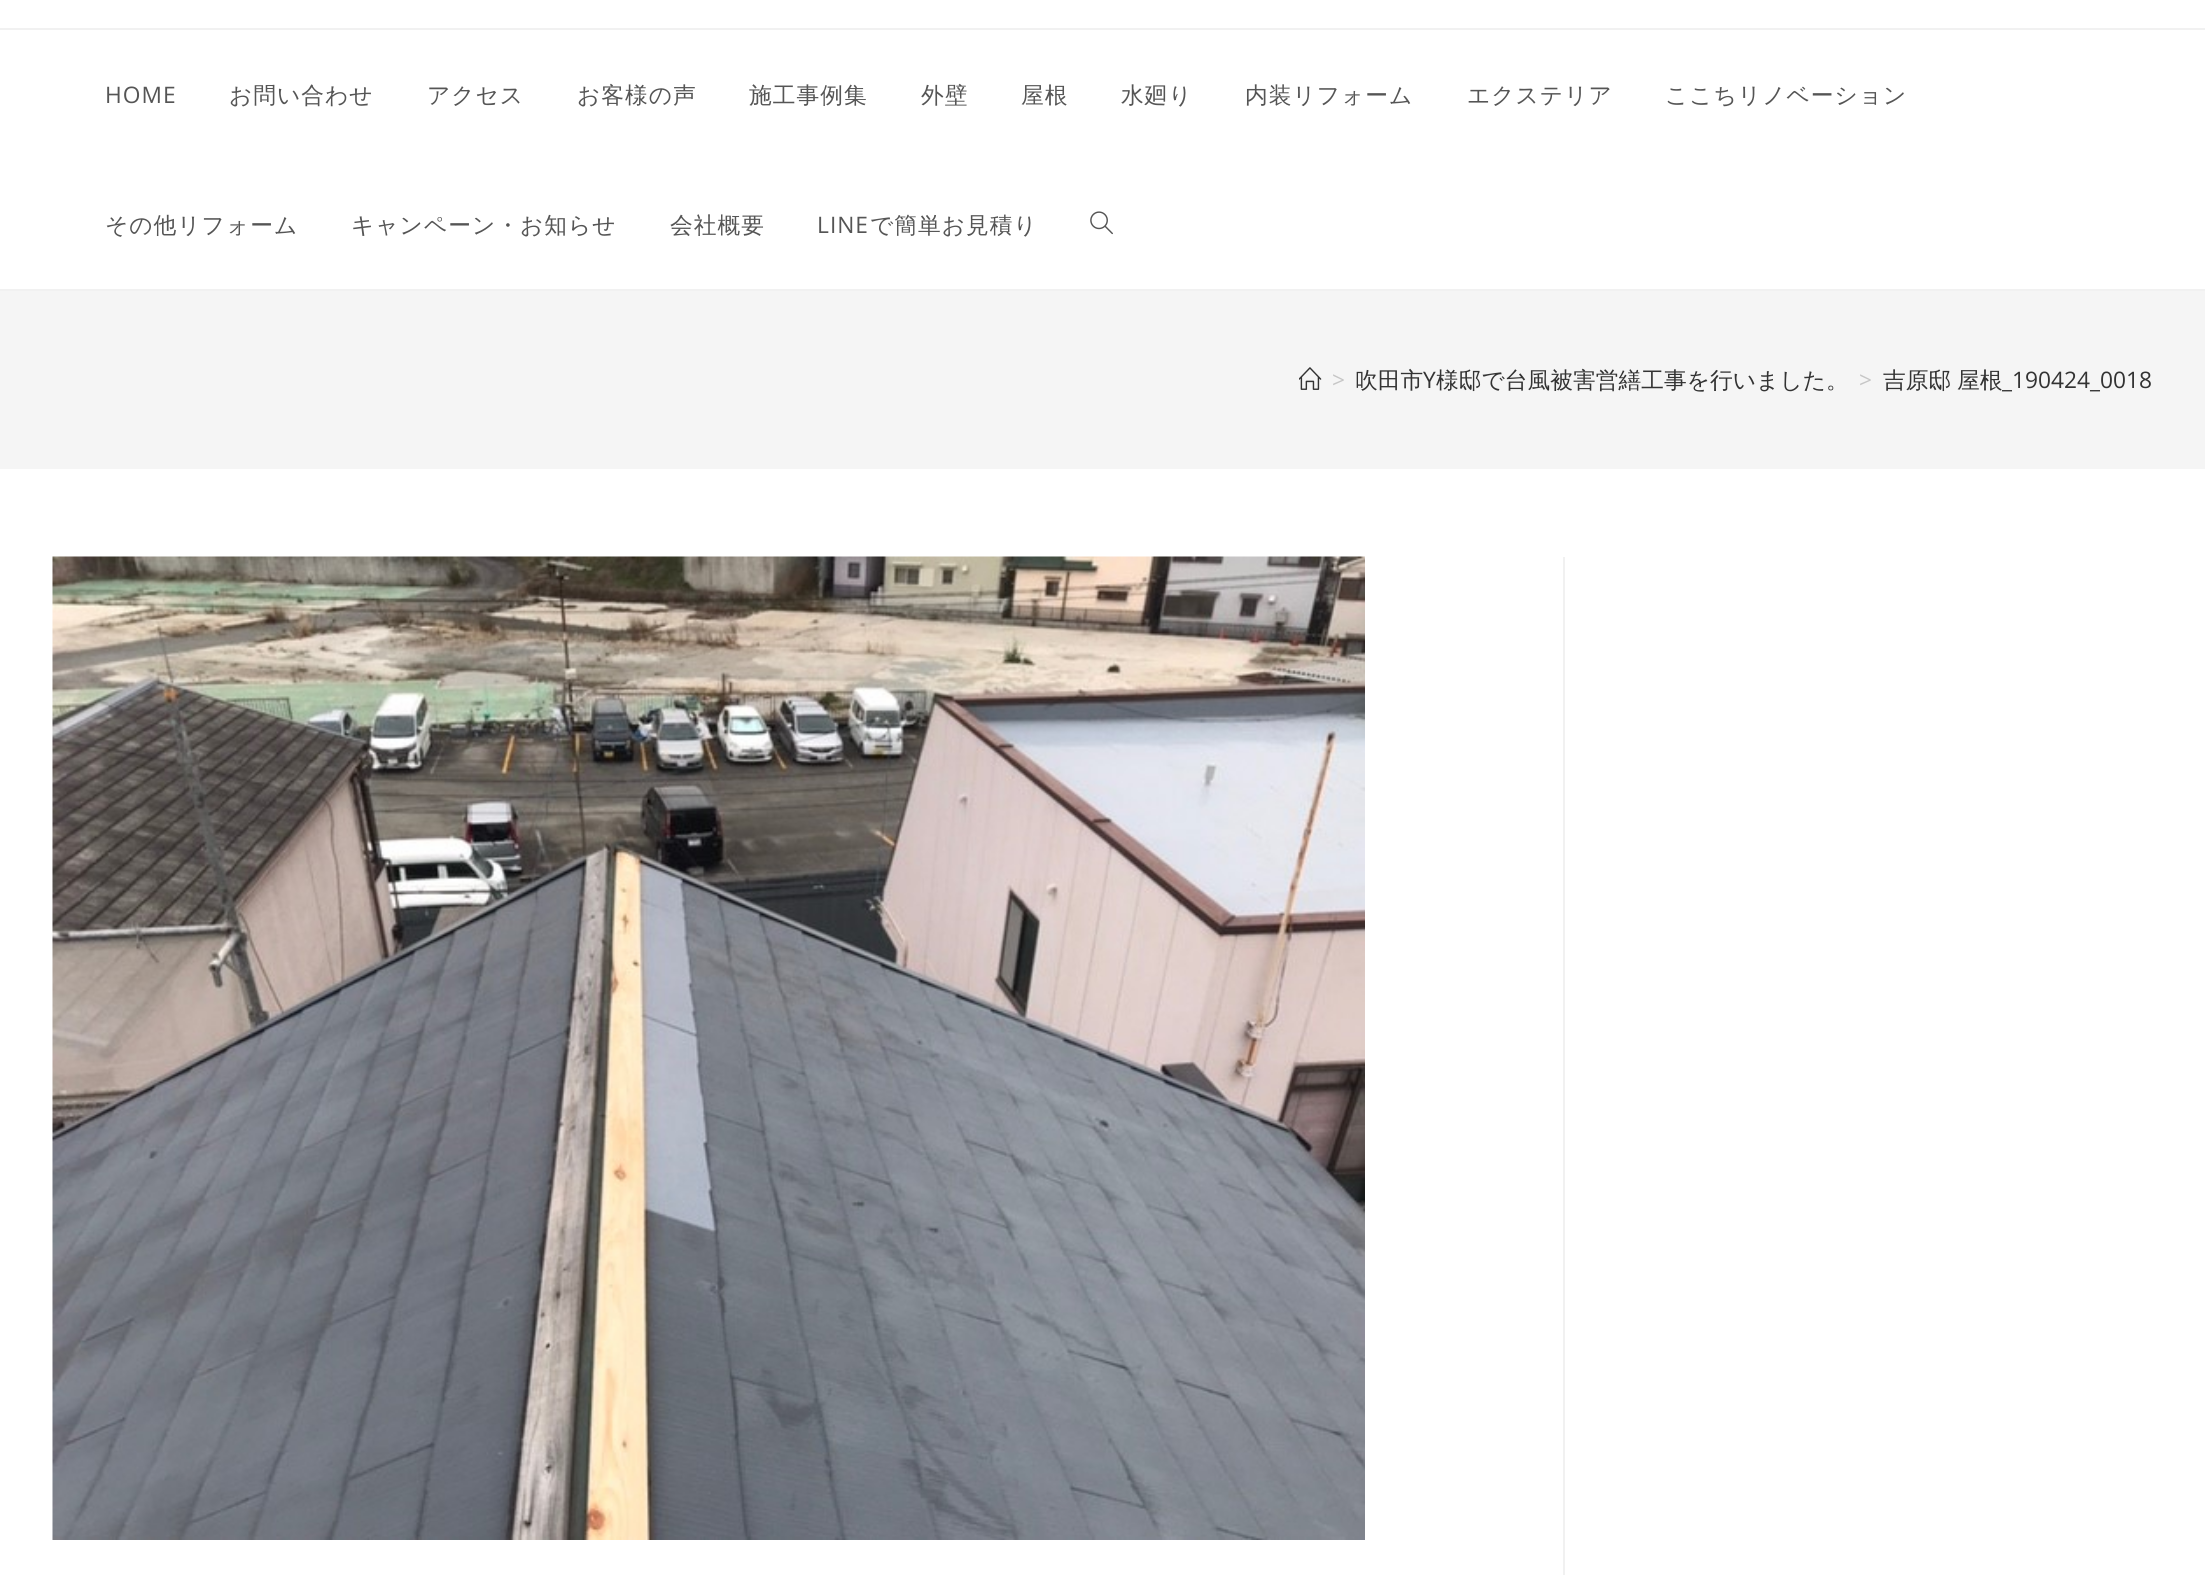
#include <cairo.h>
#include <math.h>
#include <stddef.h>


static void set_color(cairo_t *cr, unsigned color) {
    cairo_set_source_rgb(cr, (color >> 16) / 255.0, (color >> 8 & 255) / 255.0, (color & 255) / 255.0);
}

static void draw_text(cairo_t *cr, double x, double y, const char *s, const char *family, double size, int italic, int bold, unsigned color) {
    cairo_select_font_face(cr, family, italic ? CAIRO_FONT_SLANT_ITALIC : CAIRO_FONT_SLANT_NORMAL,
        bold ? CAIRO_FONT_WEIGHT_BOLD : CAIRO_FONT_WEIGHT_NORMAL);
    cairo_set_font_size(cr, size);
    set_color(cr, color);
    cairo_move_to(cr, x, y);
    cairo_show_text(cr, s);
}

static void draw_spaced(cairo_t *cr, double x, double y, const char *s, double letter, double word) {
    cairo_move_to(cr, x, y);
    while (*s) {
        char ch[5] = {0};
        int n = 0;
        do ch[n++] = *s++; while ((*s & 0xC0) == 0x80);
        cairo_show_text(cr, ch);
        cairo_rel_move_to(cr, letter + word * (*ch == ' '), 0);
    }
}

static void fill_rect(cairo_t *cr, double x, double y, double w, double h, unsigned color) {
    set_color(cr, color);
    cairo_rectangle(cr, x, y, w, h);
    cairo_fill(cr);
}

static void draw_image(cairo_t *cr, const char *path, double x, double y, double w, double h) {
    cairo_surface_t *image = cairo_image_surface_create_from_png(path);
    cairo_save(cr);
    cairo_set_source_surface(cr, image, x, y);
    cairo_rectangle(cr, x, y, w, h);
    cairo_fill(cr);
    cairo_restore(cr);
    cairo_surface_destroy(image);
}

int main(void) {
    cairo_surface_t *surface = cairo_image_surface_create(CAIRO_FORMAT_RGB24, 2205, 1592);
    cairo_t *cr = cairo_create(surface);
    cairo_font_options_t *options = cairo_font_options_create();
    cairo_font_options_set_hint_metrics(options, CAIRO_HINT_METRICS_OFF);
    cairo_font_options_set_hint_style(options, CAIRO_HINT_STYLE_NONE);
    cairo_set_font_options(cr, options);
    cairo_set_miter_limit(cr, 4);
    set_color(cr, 0xFFFFFF);
    cairo_paint(cr);
    fill_rect(cr, 0, 28, 2205, 2, 0xF1F1F1);
    fill_rect(cr, 0, 289, 2205, 2, 0xF1F1F1);
    cairo_select_font_face(cr, "Open Sans", CAIRO_FONT_SLANT_NORMAL, CAIRO_FONT_WEIGHT_NORMAL);
    cairo_set_font_size(cr, 22.75);
    set_color(cr, 0x555555);
    draw_spaced(cr, 105, 103, "HOME", 1, 0);
    cairo_select_font_face(cr, "WenQuanYi Zen Hei Medium", CAIRO_FONT_SLANT_NORMAL, CAIRO_FONT_WEIGHT_NORMAL);
    draw_spaced(cr, 229, 103, "お問い合わせ", 1, 0);
    draw_spaced(cr, 427, 103, "アクセス", 1, 0);
    draw_spaced(cr, 577, 103, "お客様の声", 1, 0);
    draw_spaced(cr, 749, 103, "施工事例集", 1, 0);
    draw_spaced(cr, 921, 103, "外壁", 1, 0);
    draw_spaced(cr, 1021, 103, "屋根", 1, 0);
    draw_spaced(cr, 1121, 103, "水廻り", 1, 0);
    draw_spaced(cr, 1245, 103, "内装リフォーム", 1, 0);
    draw_spaced(cr, 1467, 103, "エクステリア", 1, 0);
    draw_spaced(cr, 1665, 103, "ここちリノベーション", 1, 0);
    draw_spaced(cr, 105, 233, "その他リフォーム", 1, 0);
    draw_spaced(cr, 351, 233, "キャンペーン・お知らせ", 1, 0);
    draw_spaced(cr, 670, 233, "会社概要", 1, 0);
    cairo_select_font_face(cr, "Open Sans", CAIRO_FONT_SLANT_NORMAL, CAIRO_FONT_WEIGHT_NORMAL);
    draw_spaced(cr, 817, 233, "LINE", 1, 0);
    cairo_select_font_face(cr, "WenQuanYi Zen Hei Medium", CAIRO_FONT_SLANT_NORMAL, CAIRO_FONT_WEIGHT_NORMAL);
    draw_spaced(cr, 870, 233, "で簡単お見積り", 1, 0);
    draw_image(cr, "assets/img1.png", 1090, 211, 23, 24);
    fill_rect(cr, 0, 291, 2205, 178, 0xF5F5F5);
    draw_image(cr, "assets/img2.png", 1299, 367, 23, 23);
    draw_text(cr, 1332, 388, ">", "Open Sans", 22.75, 0, 0, 0xC6C6C6);
    draw_text(cr, 1355, 388, "吹田市", "WenQuanYi Zen Hei Medium", 22.75, 0, 0, 0x333333);
    draw_text(cr, 1423, 388, "Y", "Open Sans", 22.75, 0, 0, 0x333333);
    draw_text(cr, 1436, 388, "様邸で台風被害営繕工事を行いました。", "WenQuanYi Zen Hei Medium", 22.75, 0, 0, 0x333333);
    draw_text(cr, 1859, 388, ">", "Open Sans", 22.75, 0, 0, 0xC6C6C6);
    cairo_select_font_face(cr, "WenQuanYi Zen Hei Medium", CAIRO_FONT_SLANT_NORMAL, CAIRO_FONT_WEIGHT_NORMAL);
    set_color(cr, 0x333333);
    draw_spaced(cr, 1883, 388, "吉原邸 屋根", 0, -1);
    draw_text(cr, 2002, 388, "_190424_0018", "Open Sans", 22.75, 0, 0, 0x333333);
    fill_rect(cr, 1563, 557, 2, 1018, 0xF1F1F1);
    draw_image(cr, "assets/img3.png", 52, 556, 1313, 984);
    cairo_surface_write_to_png(surface, "output.png");
    cairo_font_options_destroy(options);
    cairo_destroy(cr);
    cairo_surface_destroy(surface);
    return 0;
}
